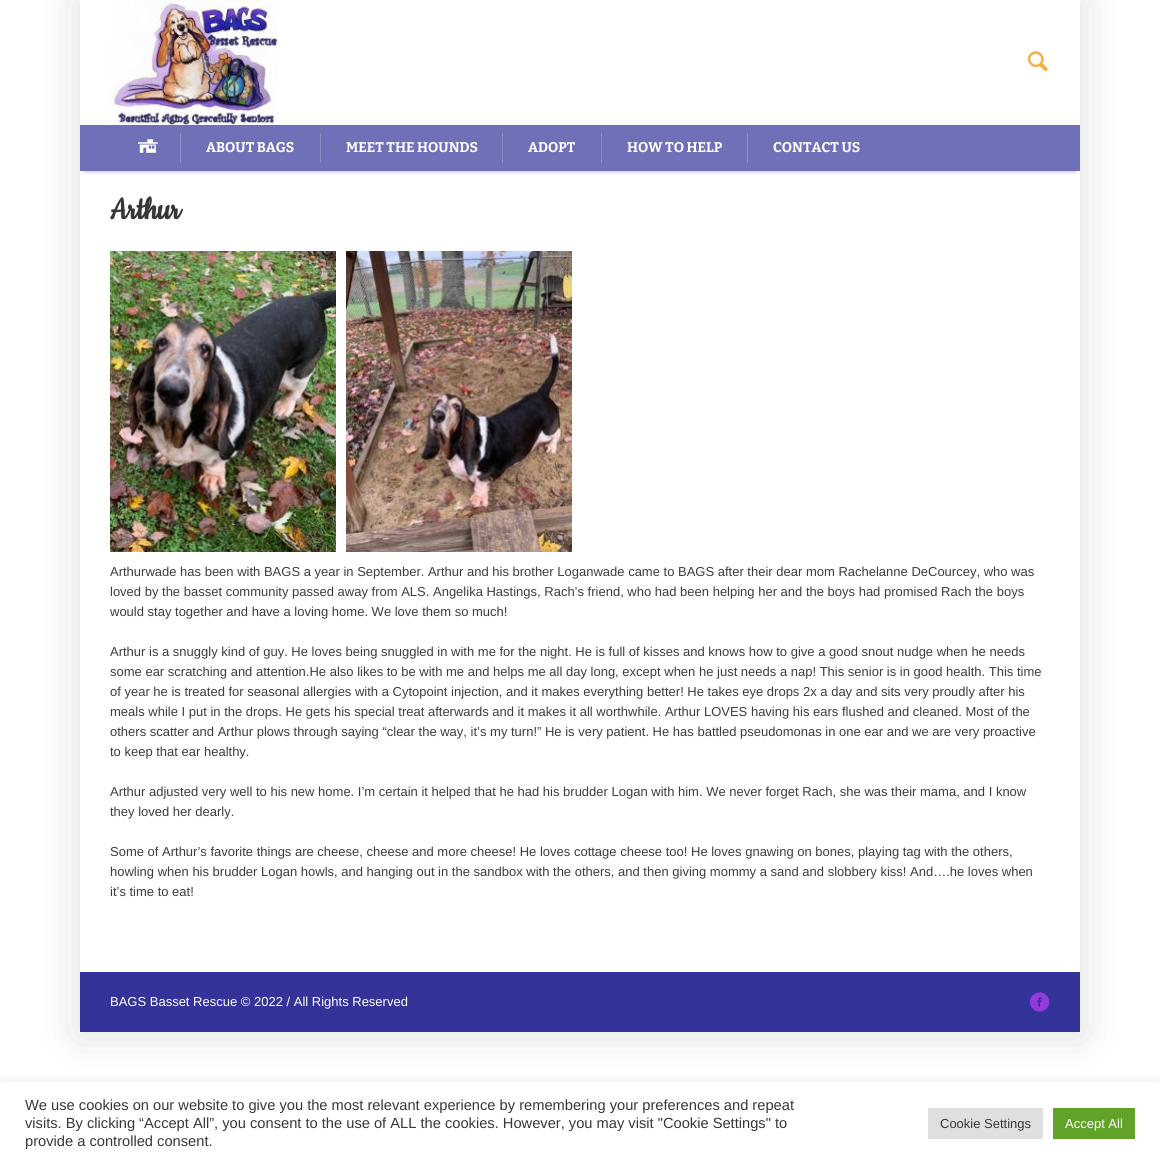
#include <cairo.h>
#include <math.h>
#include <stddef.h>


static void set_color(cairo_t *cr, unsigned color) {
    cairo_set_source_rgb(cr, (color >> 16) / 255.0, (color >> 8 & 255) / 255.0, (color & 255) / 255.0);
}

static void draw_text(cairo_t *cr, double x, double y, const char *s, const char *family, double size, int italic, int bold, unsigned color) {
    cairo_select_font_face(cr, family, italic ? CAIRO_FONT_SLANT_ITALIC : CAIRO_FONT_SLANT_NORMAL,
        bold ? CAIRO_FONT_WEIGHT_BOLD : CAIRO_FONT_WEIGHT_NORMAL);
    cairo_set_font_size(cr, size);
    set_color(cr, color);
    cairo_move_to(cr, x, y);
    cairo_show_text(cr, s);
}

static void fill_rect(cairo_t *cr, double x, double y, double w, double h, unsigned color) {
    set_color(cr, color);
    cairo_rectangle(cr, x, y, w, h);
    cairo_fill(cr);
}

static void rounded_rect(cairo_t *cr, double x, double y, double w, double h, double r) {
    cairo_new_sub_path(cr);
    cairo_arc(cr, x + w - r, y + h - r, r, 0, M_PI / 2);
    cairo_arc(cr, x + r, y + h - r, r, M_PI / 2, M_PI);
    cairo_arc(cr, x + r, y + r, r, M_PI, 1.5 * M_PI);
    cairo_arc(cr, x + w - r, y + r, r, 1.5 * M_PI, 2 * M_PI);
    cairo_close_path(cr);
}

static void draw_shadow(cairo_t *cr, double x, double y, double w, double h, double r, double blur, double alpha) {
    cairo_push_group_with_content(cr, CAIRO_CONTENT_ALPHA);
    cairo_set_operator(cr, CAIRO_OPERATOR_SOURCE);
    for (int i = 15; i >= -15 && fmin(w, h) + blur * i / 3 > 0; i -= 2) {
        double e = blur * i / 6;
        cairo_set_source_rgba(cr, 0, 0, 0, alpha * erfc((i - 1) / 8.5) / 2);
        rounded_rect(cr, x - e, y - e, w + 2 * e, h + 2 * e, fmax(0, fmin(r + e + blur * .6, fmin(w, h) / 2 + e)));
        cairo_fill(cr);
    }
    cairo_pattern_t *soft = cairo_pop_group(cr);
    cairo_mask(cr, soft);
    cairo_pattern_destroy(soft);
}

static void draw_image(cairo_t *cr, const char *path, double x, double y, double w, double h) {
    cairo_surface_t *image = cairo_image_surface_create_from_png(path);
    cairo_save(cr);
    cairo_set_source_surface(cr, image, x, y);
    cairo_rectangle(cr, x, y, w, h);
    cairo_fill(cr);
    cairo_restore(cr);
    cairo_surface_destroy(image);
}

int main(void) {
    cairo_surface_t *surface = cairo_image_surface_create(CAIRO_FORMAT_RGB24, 1160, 1164);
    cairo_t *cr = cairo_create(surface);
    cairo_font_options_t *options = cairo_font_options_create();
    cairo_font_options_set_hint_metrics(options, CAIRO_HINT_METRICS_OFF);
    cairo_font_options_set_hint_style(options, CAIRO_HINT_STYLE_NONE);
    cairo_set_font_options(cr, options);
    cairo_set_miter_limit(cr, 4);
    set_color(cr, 0xFFFFFF);
    cairo_paint(cr);
    cairo_save(cr);
    cairo_set_fill_rule(cr, CAIRO_FILL_RULE_EVEN_ODD);
    cairo_new_path(cr);
    cairo_move_to(cr, 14, 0);
    cairo_line_to(cr, 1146, 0);
    cairo_line_to(cr, 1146, 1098);
    cairo_line_to(cr, 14, 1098);
    cairo_close_path(cr);
    cairo_move_to(cr, 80, 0);
    cairo_line_to(cr, 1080, 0);
    cairo_line_to(cr, 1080, 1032);
    cairo_line_to(cr, 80, 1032);
    cairo_close_path(cr);
    cairo_clip(cr);
    set_color(cr, 0x000000);
    draw_shadow(cr, 75, -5, 1010, 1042, 0, 20, 0.11);
    cairo_restore(cr);
    cairo_save(cr);
    cairo_rectangle(cr, 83, 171, 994, 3);
    cairo_clip(cr);
    set_color(cr, 0x333399);
    draw_shadow(cr, 84, 10, 992, 163, 0, 1, 0.2);
    cairo_restore(cr);
    draw_image(cr, "assets/img1.png", 110, 0, 168, 125);
    draw_image(cr, "assets/img2.png", 1028, 51, 20, 21);
    fill_rect(cr, 80, 125, 1000, 46, 0x7070B8);
    draw_image(cr, "assets/img3.png", 138, 139, 20, 14);
    fill_rect(cr, 180, 133, 1, 30, 0x8D8DC6);
    draw_text(cr, 206, 152, "ABOUT BAGS", "Bitter", 14, 0, 1, 0xFFFFFF);
    fill_rect(cr, 320, 133, 1, 30, 0x8D8DC6);
    draw_text(cr, 346, 152, "MEET THE HOUNDS", "Bitter", 14, 0, 1, 0xFFFFFF);
    fill_rect(cr, 502, 133, 1, 30, 0x8D8DC6);
    draw_text(cr, 528, 152, "ADOPT", "Bitter", 14, 0, 1, 0xFFFFFF);
    fill_rect(cr, 601, 133, 1, 30, 0x8D8DC6);
    draw_text(cr, 627, 152, "HOW TO HELP", "Bitter", 14, 0, 1, 0xFFFFFF);
    fill_rect(cr, 747, 133, 1, 30, 0x8D8DC6);
    draw_text(cr, 773, 152, "CONTACT US", "Bitter", 14, 0, 1, 0xFFFFFF);
    draw_text(cr, 110, 219, "Arthur", "Cookie", 36, 0, 1, 0x373737);
    draw_image(cr, "assets/img4.png", 110, 251, 226, 301);
    draw_image(cr, "assets/img5.png", 346, 251, 226, 301);
    draw_text(cr, 110, 576, "Arthurwade has been with BAGS a year in September. Arthur and his brother Loganwade came to BAGS after their dear mom Rachelanne DeCourcey, who was", "Liberation Sans", 13, 0, 0, 0x3D3D3D);
    draw_text(cr, 110, 596, "loved by the basset community passed away from ALS. Angelika Hastings, Rach’s friend, who had been helping her and the boys had promised Rach the boys", "Liberation Sans", 13, 0, 0, 0x3D3D3D);
    draw_text(cr, 110, 616, "would stay together and have a loving home. We love them so much!", "Liberation Sans", 13, 0, 0, 0x3D3D3D);
    draw_text(cr, 110, 656, "Arthur is a snuggly kind of guy. He loves being snuggled in with me for the night. He is full of kisses and knows how to give a good snout nudge when he needs", "Liberation Sans", 13, 0, 0, 0x3D3D3D);
    draw_text(cr, 110, 676, "some ear scratching and attention.He also likes to be with me and helps me all day long, except when he just needs a nap! This senior is in good health. This time", "Liberation Sans", 13, 0, 0, 0x3D3D3D);
    draw_text(cr, 110, 696, "of year he is treated for seasonal allergies with a Cytopoint injection, and it makes everything better! He takes eye drops 2x a day and sits very proudly after his", "Liberation Sans", 13, 0, 0, 0x3D3D3D);
    draw_text(cr, 110, 716, "meals while I put in the drops. He gets his special treat afterwards and it makes it all worthwhile. Arthur LOVES having his ears flushed and cleaned. Most of the", "Liberation Sans", 13, 0, 0, 0x3D3D3D);
    draw_text(cr, 110, 736, "others scatter and Arthur plows through saying “clear the way, it’s my turn!” He is very patient. He has battled pseudomonas in one ear and we are very proactive", "Liberation Sans", 13, 0, 0, 0x3D3D3D);
    draw_text(cr, 110, 756, "to keep that ear healthy.", "Liberation Sans", 13, 0, 0, 0x3D3D3D);
    draw_text(cr, 110, 796, "Arthur adjusted very well to his new home. I’m certain it helped that he had his brudder Logan with him. We never forget Rach, she was their mama, and I know", "Liberation Sans", 13, 0, 0, 0x3D3D3D);
    draw_text(cr, 110, 816, "they loved her dearly.", "Liberation Sans", 13, 0, 0, 0x3D3D3D);
    draw_text(cr, 110, 856, "Some of Arthur’s favorite things are cheese, cheese and more cheese! He loves cottage cheese too! He loves gnawing on bones, playing tag with the others,", "Liberation Sans", 13, 0, 0, 0x3D3D3D);
    draw_text(cr, 110, 876, "howling when his brudder Logan howls, and hanging out in the sandbox with the others, and then giving mommy a sand and slobbery kiss! And….he loves when", "Liberation Sans", 13, 0, 0, 0x3D3D3D);
    draw_text(cr, 110, 896, "it’s time to eat!", "Liberation Sans", 13, 0, 0, 0x3D3D3D);
    fill_rect(cr, 80, 972, 1000, 60, 0x333399);
    draw_text(cr, 110, 1006, "BAGS Basset Rescue © 2022 / All Rights Reserved", "Liberation Sans", 13, 0, 0, 0xFFFFFF);
    draw_image(cr, "assets/img6.png", 1030, 992, 20, 20);
    cairo_save(cr);
    cairo_rectangle(cr, 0, 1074, 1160, 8);
    cairo_clip(cr);
    set_color(cr, 0xACABAB);
    draw_shadow(cr, 0, 1081, 1160, 82, 0, 5, 0.3);
    cairo_restore(cr);
    draw_text(cr, 25, 1110, "We use cookies on our website to give you the most relevant experience by remembering your preferences and repeat", "Liberation Sans", 14.67, 0, 0, 0x373737);
    draw_text(cr, 25, 1128, "visits. By clicking “Accept All”, you consent to the use of ALL the cookies. However, you may visit \"Cookie Settings\" to", "Liberation Sans", 14.67, 0, 0, 0x373737);
    draw_text(cr, 25, 1146, "provide a controlled consent.", "Liberation Sans", 14.67, 0, 0, 0x373737);
    fill_rect(cr, 928, 1108, 115, 31, 0xDEDFE0);
    draw_text(cr, 940, 1128, "Cookie Settings", "Liberation Sans", 13, 0, 0, 0x373737);
    fill_rect(cr, 1053, 1108, 82, 31, 0x61A229);
    draw_text(cr, 1065, 1128, "Accept All", "Liberation Sans", 13, 0, 0, 0xFFFFFF);
    cairo_surface_write_to_png(surface, "output.png");
    cairo_font_options_destroy(options);
    cairo_destroy(cr);
    cairo_surface_destroy(surface);
    return 0;
}
